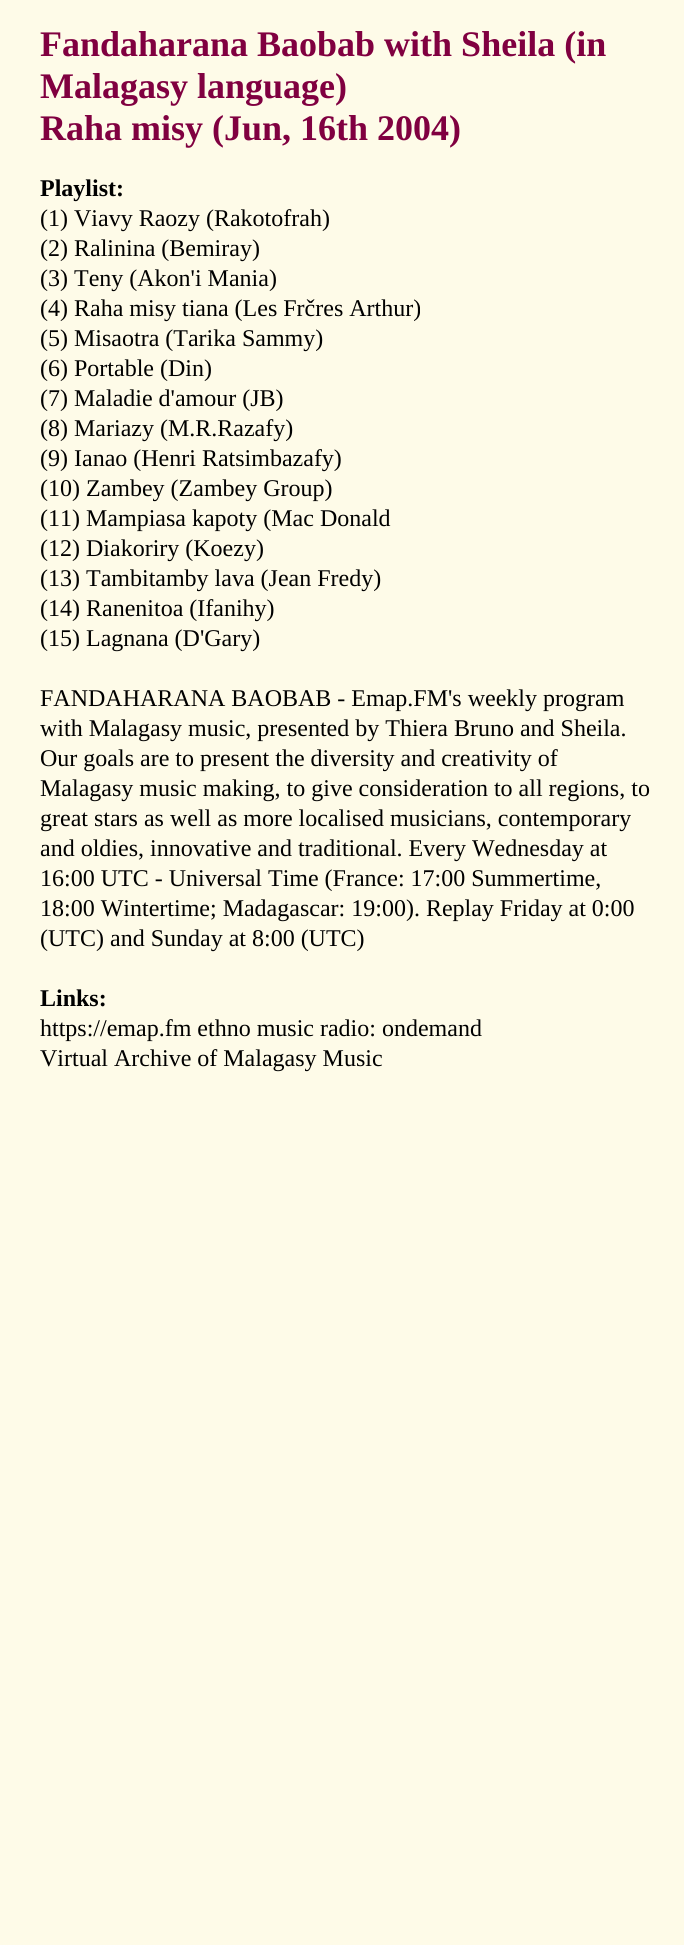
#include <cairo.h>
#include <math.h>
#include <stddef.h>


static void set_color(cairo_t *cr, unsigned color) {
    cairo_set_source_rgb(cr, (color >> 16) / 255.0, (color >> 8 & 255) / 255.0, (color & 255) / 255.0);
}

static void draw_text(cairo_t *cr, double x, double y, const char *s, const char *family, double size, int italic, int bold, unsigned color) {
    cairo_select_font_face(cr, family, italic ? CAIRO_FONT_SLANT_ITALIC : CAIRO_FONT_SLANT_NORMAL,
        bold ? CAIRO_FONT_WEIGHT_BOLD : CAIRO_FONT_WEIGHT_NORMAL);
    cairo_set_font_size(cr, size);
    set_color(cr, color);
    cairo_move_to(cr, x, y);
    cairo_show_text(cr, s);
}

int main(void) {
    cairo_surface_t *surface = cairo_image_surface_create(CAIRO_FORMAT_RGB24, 684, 1945);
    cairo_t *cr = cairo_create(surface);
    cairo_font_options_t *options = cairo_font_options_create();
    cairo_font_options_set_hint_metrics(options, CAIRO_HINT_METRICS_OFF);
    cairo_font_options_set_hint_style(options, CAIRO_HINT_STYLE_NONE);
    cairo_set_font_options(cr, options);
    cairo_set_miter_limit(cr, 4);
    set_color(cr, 0xFEFBE8);
    cairo_paint(cr);
    draw_text(cr, 40, 56, "Fandaharana Baobab with Sheila (in", "Liberation Serif", 36, 0, 1, 0x800040);
    draw_text(cr, 40, 98, "Malagasy language)", "Liberation Serif", 36, 0, 1, 0x800040);
    draw_text(cr, 40, 140, "Raha misy (Jun, 16th 2004)", "Liberation Serif", 36, 0, 1, 0x800040);
    draw_text(cr, 40, 196, "Playlist:", "Liberation Serif", 24, 0, 1, 0x000000);
    draw_text(cr, 40, 226, "(1) Viavy Raozy (Rakotofrah)", "Liberation Serif", 24, 0, 0, 0x000000);
    draw_text(cr, 40, 256, "(2) Ralinina (Bemiray)", "Liberation Serif", 24, 0, 0, 0x000000);
    draw_text(cr, 40, 286, "(3) Teny (Akon'i Mania)", "Liberation Serif", 24, 0, 0, 0x000000);
    draw_text(cr, 40, 316, "(4) Raha misy tiana (Les Frčres Arthur)", "Liberation Serif", 24, 0, 0, 0x000000);
    draw_text(cr, 40, 346, "(5) Misaotra (Tarika Sammy)", "Liberation Serif", 24, 0, 0, 0x000000);
    draw_text(cr, 40, 376, "(6) Portable (Din)", "Liberation Serif", 24, 0, 0, 0x000000);
    draw_text(cr, 40, 406, "(7) Maladie d'amour (JB)", "Liberation Serif", 24, 0, 0, 0x000000);
    draw_text(cr, 40, 436, "(8) Mariazy (M.R.Razafy)", "Liberation Serif", 24, 0, 0, 0x000000);
    draw_text(cr, 40, 466, "(9) Ianao (Henri Ratsimbazafy)", "Liberation Serif", 24, 0, 0, 0x000000);
    draw_text(cr, 40, 496, "(10) Zambey (Zambey Group)", "Liberation Serif", 24, 0, 0, 0x000000);
    draw_text(cr, 40, 526, "(11) Mampiasa kapoty (Mac Donald", "Liberation Serif", 24, 0, 0, 0x000000);
    draw_text(cr, 40, 556, "(12) Diakoriry (Koezy)", "Liberation Serif", 24, 0, 0, 0x000000);
    draw_text(cr, 40, 586, "(13) Tambitamby lava (Jean Fredy)", "Liberation Serif", 24, 0, 0, 0x000000);
    draw_text(cr, 40, 616, "(14) Ranenitoa (Ifanihy)", "Liberation Serif", 24, 0, 0, 0x000000);
    draw_text(cr, 40, 646, "(15) Lagnana (D'Gary)", "Liberation Serif", 24, 0, 0, 0x000000);
    draw_text(cr, 40, 706, "FANDAHARANA BAOBAB - Emap.FM's weekly program", "Liberation Serif", 24, 0, 0, 0x000000);
    draw_text(cr, 40, 736, "with Malagasy music, presented by Thiera Bruno and Sheila.", "Liberation Serif", 24, 0, 0, 0x000000);
    draw_text(cr, 40, 766, "Our goals are to present the diversity and creativity of", "Liberation Serif", 24, 0, 0, 0x000000);
    draw_text(cr, 40, 796, "Malagasy music making, to give consideration to all regions, to", "Liberation Serif", 24, 0, 0, 0x000000);
    draw_text(cr, 40, 826, "great stars as well as more localised musicians, contemporary", "Liberation Serif", 24, 0, 0, 0x000000);
    draw_text(cr, 40, 856, "and oldies, innovative and traditional. Every Wednesday at", "Liberation Serif", 24, 0, 0, 0x000000);
    draw_text(cr, 40, 886, "16:00 UTC - Universal Time (France: 17:00 Summertime,", "Liberation Serif", 24, 0, 0, 0x000000);
    draw_text(cr, 40, 916, "18:00 Wintertime; Madagascar: 19:00). Replay Friday at 0:00", "Liberation Serif", 24, 0, 0, 0x000000);
    draw_text(cr, 40, 946, "(UTC) and Sunday at 8:00 (UTC)", "Liberation Serif", 24, 0, 0, 0x000000);
    draw_text(cr, 40, 1006, "Links:", "Liberation Serif", 24, 0, 1, 0x000000);
    draw_text(cr, 40, 1036, "https://emap.fm ethno music radio: ondemand", "Liberation Serif", 24, 0, 0, 0x000000);
    draw_text(cr, 40, 1066, "Virtual Archive of Malagasy Music", "Liberation Serif", 24, 0, 0, 0x000000);
    cairo_surface_write_to_png(surface, "output.png");
    cairo_font_options_destroy(options);
    cairo_destroy(cr);
    cairo_surface_destroy(surface);
    return 0;
}
